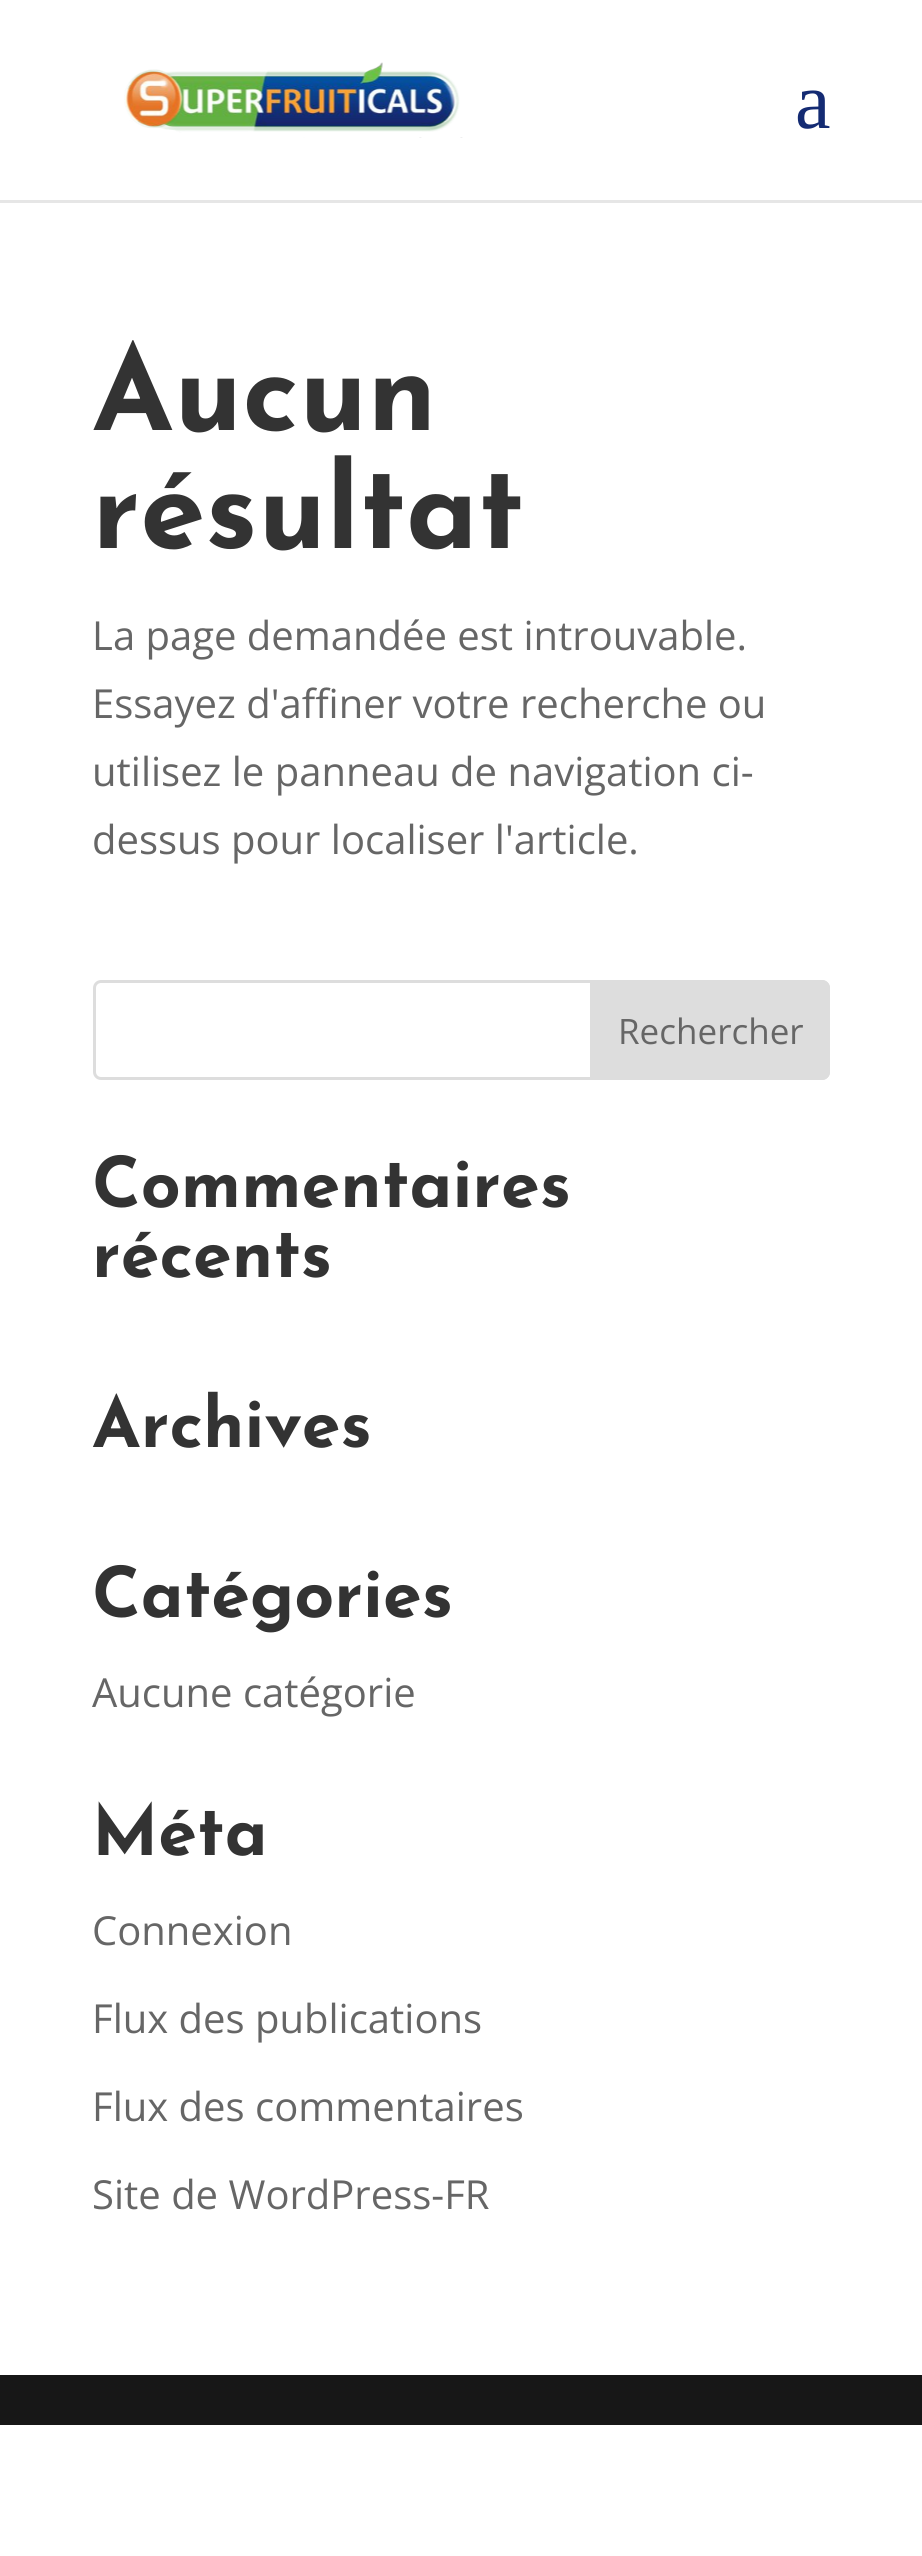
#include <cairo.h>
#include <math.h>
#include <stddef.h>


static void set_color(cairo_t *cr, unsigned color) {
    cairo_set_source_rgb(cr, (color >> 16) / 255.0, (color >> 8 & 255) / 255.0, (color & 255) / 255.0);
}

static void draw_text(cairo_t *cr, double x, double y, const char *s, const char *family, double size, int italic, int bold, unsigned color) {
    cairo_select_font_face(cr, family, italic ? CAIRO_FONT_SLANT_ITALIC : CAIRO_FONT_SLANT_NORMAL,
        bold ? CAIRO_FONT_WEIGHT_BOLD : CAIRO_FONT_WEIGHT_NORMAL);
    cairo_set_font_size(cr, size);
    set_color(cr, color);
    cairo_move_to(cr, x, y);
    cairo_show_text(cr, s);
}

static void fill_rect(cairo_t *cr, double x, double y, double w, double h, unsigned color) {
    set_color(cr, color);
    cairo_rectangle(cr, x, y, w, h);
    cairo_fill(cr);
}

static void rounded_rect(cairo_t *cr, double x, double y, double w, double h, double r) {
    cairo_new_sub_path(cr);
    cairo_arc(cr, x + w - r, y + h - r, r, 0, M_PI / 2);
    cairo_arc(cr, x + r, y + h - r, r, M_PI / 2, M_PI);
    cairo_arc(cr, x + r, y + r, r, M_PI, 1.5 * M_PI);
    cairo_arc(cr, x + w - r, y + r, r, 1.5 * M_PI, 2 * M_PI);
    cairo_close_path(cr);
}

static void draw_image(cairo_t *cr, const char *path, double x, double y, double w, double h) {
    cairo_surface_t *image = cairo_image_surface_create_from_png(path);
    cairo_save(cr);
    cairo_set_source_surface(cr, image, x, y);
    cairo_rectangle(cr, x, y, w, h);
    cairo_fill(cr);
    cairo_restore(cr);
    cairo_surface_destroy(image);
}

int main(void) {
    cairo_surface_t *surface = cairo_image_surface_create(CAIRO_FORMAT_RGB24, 922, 2556);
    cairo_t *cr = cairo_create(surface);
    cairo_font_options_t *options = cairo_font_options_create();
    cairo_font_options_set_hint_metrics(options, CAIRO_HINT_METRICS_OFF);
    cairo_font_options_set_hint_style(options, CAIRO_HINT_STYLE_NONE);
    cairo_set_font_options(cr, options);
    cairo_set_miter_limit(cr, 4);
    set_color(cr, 0xFFFFFF);
    cairo_paint(cr);
    set_color(cr, 0xE6E6E6);
    cairo_new_path(cr);
    cairo_move_to(cr, 0, 200);
    cairo_line_to(cr, 0, 203);
    cairo_line_to(cr, 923, 203);
    cairo_line_to(cr, 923, 3);
    cairo_line_to(cr, 922, 3);
    cairo_line_to(cr, 922, 200);
    cairo_close_path(cr);
    cairo_fill(cr);
    draw_image(cr, "assets/img1.png", 124, 62, 339, 76);
    draw_text(cr, 795, 128, "a", "Liberation Serif", 80, 0, 0, 0x142B73);
    draw_text(cr, 92, 430, "Aucun", "Josefin Sans Thin", 117.5, 0, 0, 0x333333);
    draw_text(cr, 92, 548, "résultat", "Josefin Sans Thin", 117.5, 0, 0, 0x333333);
    draw_text(cr, 92, 650, "La page demandée est introuvable.", "Open Sans", 40, 0, 0, 0x666666);
    draw_text(cr, 92, 718, "Essayez d'affiner votre recherche ou", "Open Sans", 40, 0, 0, 0x666666);
    draw_text(cr, 92, 786, "utilisez le panneau de navigation ci-", "Open Sans", 40, 0, 0, 0x666666);
    draw_text(cr, 92, 854, "dessus pour localiser l'article.", "Open Sans", 40, 0, 0, 0x666666);
    rounded_rect(cr, 94.5, 981.5, 734, 97, 6.5);
    set_color(cr, 0xDDDDDD);
    cairo_set_line_width(cr, 3);
    cairo_stroke(cr);
    cairo_new_path(cr);
    cairo_move_to(cr, 591.5, 981.5);
    cairo_line_to(cr, 822, 981.5);
    cairo_curve_to(cr, 825.5, 981.5, 828.5, 984.5, 828.5, 988);
    cairo_line_to(cr, 828.5, 1072);
    cairo_curve_to(cr, 828.5, 1075.5, 825.5, 1078.5, 822, 1078.5);
    cairo_line_to(cr, 591.5, 1078.5);
    cairo_close_path(cr);
    cairo_fill_preserve(cr);
    cairo_stroke(cr);
    draw_text(cr, 618, 1044, "Rechercher", "Open Sans", 35, 0, 0, 0x666666);
    draw_text(cr, 92, 1207, "Commentaires", "Josefin Sans Thin", 70, 0, 0, 0x333333);
    draw_text(cr, 92, 1277, "récents", "Josefin Sans Thin", 70, 0, 0, 0x333333);
    draw_text(cr, 92, 1447, "Archives", "Josefin Sans Thin", 70, 0, 0, 0x333333);
    draw_text(cr, 92, 1617, "Catégories", "Josefin Sans Thin", 70, 0, 0, 0x333333);
    draw_text(cr, 92, 1707, "Aucune catégorie", "Open Sans", 40, 0, 0, 0x666666);
    draw_text(cr, 92, 1855, "Méta", "Josefin Sans Thin", 70, 0, 0, 0x333333);
    draw_text(cr, 92, 1945, "Connexion", "Open Sans", 40, 0, 0, 0x666666);
    draw_text(cr, 92, 2033, "Flux des publications", "Open Sans", 40, 0, 0, 0x666666);
    draw_text(cr, 92, 2121, "Flux des commentaires", "Open Sans", 40, 0, 0, 0x666666);
    draw_text(cr, 92, 2209, "Site de WordPress-FR", "Open Sans", 40, 0, 0, 0x666666);
    fill_rect(cr, 0, 2375, 922, 50, 0x171717);
    cairo_surface_write_to_png(surface, "output.png");
    cairo_font_options_destroy(options);
    cairo_destroy(cr);
    cairo_surface_destroy(surface);
    return 0;
}
